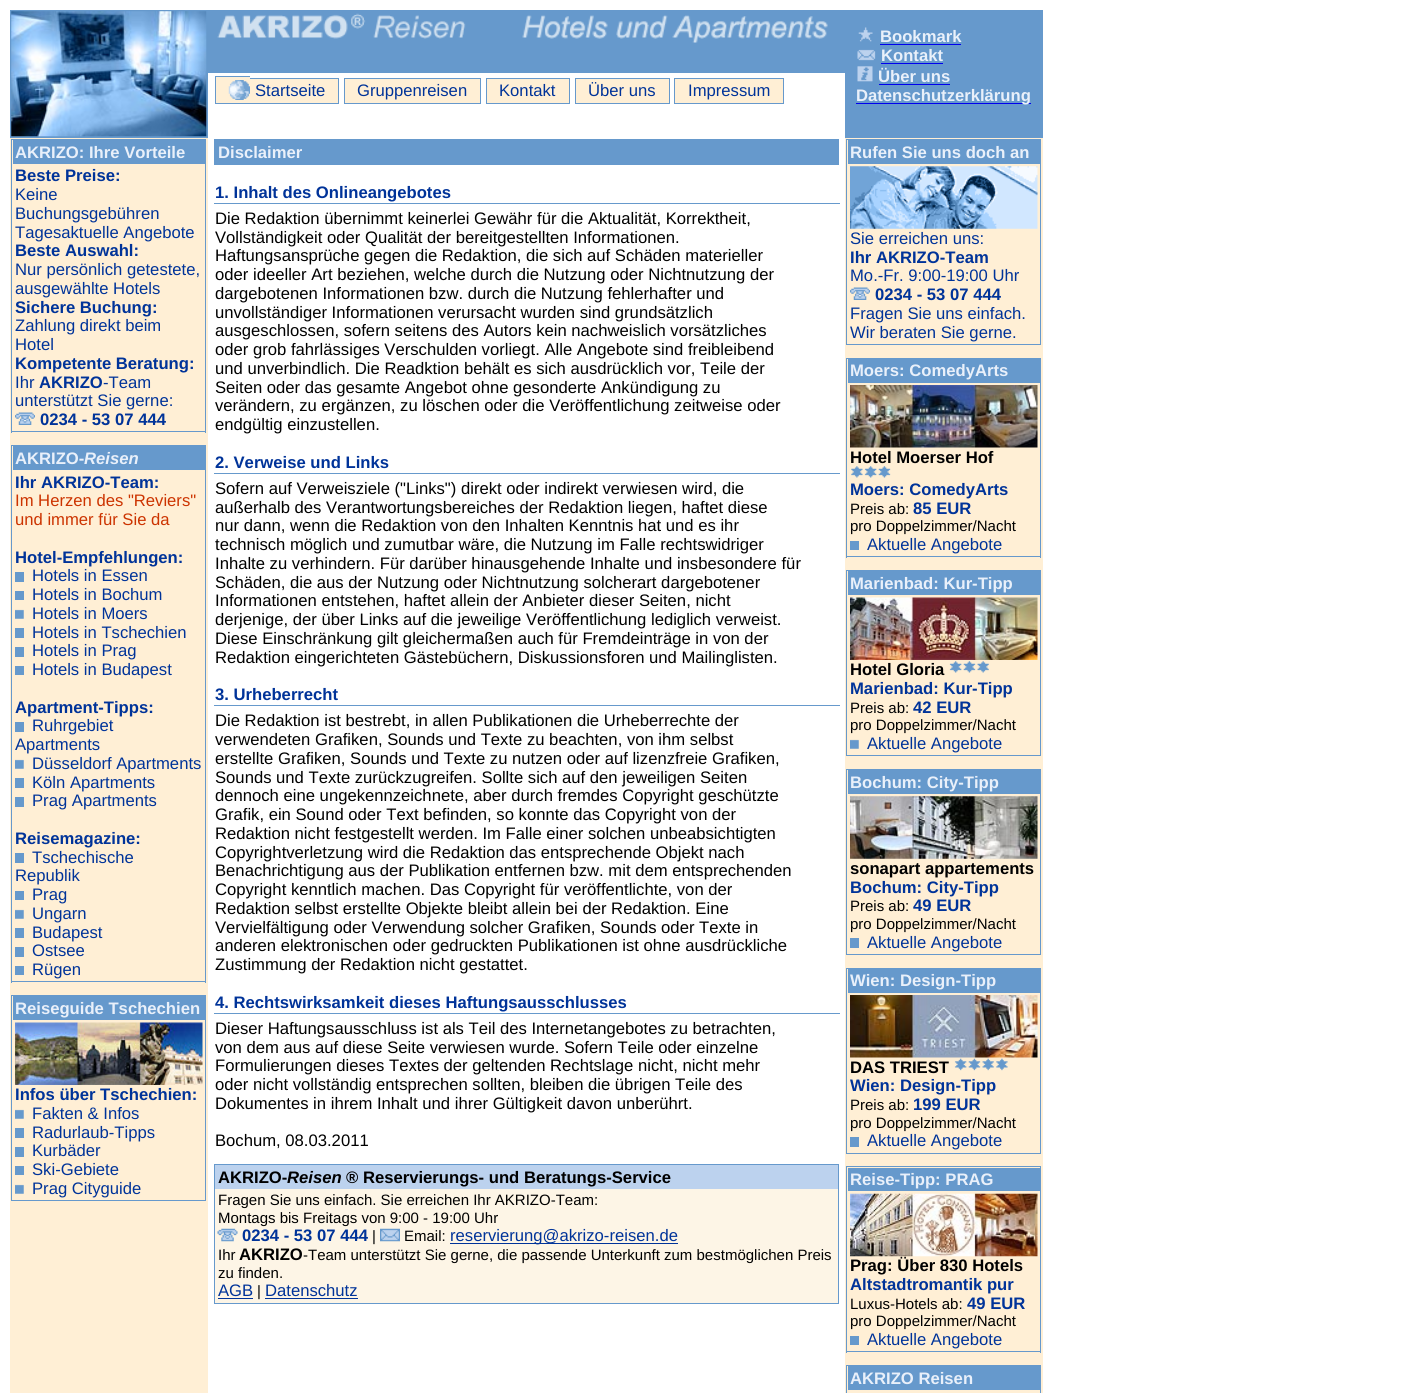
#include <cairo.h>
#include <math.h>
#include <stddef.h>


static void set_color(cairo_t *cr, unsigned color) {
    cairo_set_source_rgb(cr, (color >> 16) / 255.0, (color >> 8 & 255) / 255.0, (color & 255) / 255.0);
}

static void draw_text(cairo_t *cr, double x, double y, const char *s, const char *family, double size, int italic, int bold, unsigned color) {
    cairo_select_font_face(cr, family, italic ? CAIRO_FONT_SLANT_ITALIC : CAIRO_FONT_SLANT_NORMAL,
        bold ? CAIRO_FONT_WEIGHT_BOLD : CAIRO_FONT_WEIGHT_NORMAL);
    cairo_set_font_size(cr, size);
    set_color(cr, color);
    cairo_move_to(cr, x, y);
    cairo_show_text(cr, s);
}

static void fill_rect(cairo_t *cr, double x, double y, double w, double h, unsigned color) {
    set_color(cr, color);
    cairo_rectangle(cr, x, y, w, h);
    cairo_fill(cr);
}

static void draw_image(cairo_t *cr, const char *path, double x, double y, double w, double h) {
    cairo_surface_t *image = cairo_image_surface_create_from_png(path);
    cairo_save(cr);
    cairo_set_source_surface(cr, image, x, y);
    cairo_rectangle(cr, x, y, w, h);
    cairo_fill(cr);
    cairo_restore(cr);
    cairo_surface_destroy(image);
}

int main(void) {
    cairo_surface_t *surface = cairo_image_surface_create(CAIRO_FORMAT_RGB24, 1413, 1393);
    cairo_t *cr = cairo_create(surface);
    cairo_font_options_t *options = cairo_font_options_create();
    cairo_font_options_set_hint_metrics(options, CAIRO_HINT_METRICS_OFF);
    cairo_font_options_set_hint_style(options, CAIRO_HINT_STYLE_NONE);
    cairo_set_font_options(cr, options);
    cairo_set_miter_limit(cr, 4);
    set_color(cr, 0xFFFFFF);
    cairo_paint(cr);
    fill_rect(cr, 216, 77, 34, 26, 0xFFEFD5);
    draw_image(cr, "assets/img1.png", 228, 80, 22, 20);
    fill_rect(cr, 250, 79, 88, 24, 0xFFEFD5);
    draw_text(cr, 255, 96, "Startseite", "Liberation Sans", 16.65, 0, 0, 0x003399);
    fill_rect(cr, 215, 76, 35, 1, 0x6699CC);
    fill_rect(cr, 215, 103, 35, 1, 0x6699CC);
    fill_rect(cr, 215, 76, 1, 28, 0x6699CC);
    fill_rect(cr, 250, 78, 89, 1, 0x6699CC);
    fill_rect(cr, 338, 78, 1, 26, 0x6699CC);
    fill_rect(cr, 250, 103, 89, 1, 0x6699CC);
    set_color(cr, 0xFFEFD5);
    cairo_rectangle(cr, 344.5, 78.5, 136, 25);
    cairo_fill_preserve(cr);
    set_color(cr, 0x6699CC);
    cairo_set_line_width(cr, 1);
    cairo_stroke(cr);
    draw_text(cr, 357, 96, "Gruppenreisen", "Liberation Sans", 16.65, 0, 0, 0x003399);
    set_color(cr, 0xFFEFD5);
    cairo_rectangle(cr, 486.5, 78.5, 83, 25);
    cairo_fill_preserve(cr);
    set_color(cr, 0x6699CC);
    cairo_stroke(cr);
    draw_text(cr, 499, 96, "Kontakt", "Liberation Sans", 16.65, 0, 0, 0x003399);
    set_color(cr, 0xFFEFD5);
    cairo_rectangle(cr, 575.5, 78.5, 94, 25);
    cairo_fill_preserve(cr);
    set_color(cr, 0x6699CC);
    cairo_stroke(cr);
    draw_text(cr, 588, 96, "Über uns", "Liberation Sans", 16.65, 0, 0, 0x003399);
    set_color(cr, 0xFFEFD5);
    cairo_rectangle(cr, 674.5, 78.5, 109, 25);
    cairo_fill_preserve(cr);
    set_color(cr, 0x6699CC);
    cairo_stroke(cr);
    draw_text(cr, 688, 96, "Impressum", "Liberation Sans", 16.65, 0, 0, 0x003399);
    fill_rect(cr, 10, 10, 198, 128, 0x6699CC);
    draw_image(cr, "assets/img2.png", 11, 11, 196, 126);
    fill_rect(cr, 208, 10, 637, 63, 0x6699CC);
    draw_image(cr, "assets/img3.png", 217, 13, 611, 30);
    fill_rect(cr, 845, 10, 198, 128, 0x6699CC);
    draw_image(cr, "assets/img4.png", 858, 27, 15, 15);
    draw_text(cr, 880, 42, "Bookmark", "Liberation Sans", 16.65, 0, 1, 0xE9F0FA);
    fill_rect(cr, 880, 44, 81, 1, 0x0000EE);
    draw_image(cr, "assets/img5.png", 857, 49, 19, 12);
    draw_text(cr, 881, 61, "Kontakt", "Liberation Sans", 16.65, 0, 1, 0xE9F0FA);
    fill_rect(cr, 881, 63, 62, 1, 0x0000EE);
    draw_image(cr, "assets/img6.png", 857, 66, 16, 16);
    draw_text(cr, 878, 82, "Über uns", "Liberation Sans", 16.65, 0, 1, 0xE9F0FA);
    fill_rect(cr, 879, 84, 71, 1, 0x0000EE);
    fill_rect(cr, 856, 103, 175, 1, 0x0000EE);
    draw_text(cr, 856, 101, "Datenschutzerklärung", "Liberation Sans", 16.65, 0, 1, 0xE9F0FA);
    fill_rect(cr, 10, 138, 198, 1255, 0xFFEFD5);
    fill_rect(cr, 11, 139, 195, 1, 0x6699CC);
    fill_rect(cr, 205, 139, 1, 294, 0x6699CC);
    fill_rect(cr, 11, 431, 195, 1, 0x6699CC);
    fill_rect(cr, 11, 139, 1, 294, 0x6699CC);
    fill_rect(cr, 13, 140, 192, 24, 0x6699CC);
    draw_text(cr, 15, 158, "AKRIZO: Ihre Vorteile", "Liberation Sans", 16.65, 0, 1, 0xE9F0FA);
    draw_text(cr, 15, 181, "Beste Preise:", "Liberation Sans", 16.65, 0, 1, 0x003399);
    draw_text(cr, 15, 200, "Keine", "Liberation Sans", 16.65, 0, 0, 0x003399);
    draw_text(cr, 15, 219, "Buchungsgebühren", "Liberation Sans", 16.65, 0, 0, 0x003399);
    draw_text(cr, 15, 238, "Tagesaktuelle Angebote", "Liberation Sans", 16.65, 0, 0, 0x003399);
    draw_text(cr, 15, 256, "Beste Auswahl:", "Liberation Sans", 16.65, 0, 1, 0x003399);
    draw_text(cr, 15, 275, "Nur persönlich getestete,", "Liberation Sans", 16.65, 0, 0, 0x003399);
    draw_text(cr, 15, 294, "ausgewählte Hotels", "Liberation Sans", 16.65, 0, 0, 0x003399);
    draw_text(cr, 15, 313, "Sichere Buchung:", "Liberation Sans", 16.65, 0, 1, 0x003399);
    draw_text(cr, 15, 331, "Zahlung direkt beim", "Liberation Sans", 16.65, 0, 0, 0x003399);
    draw_text(cr, 15, 350, "Hotel", "Liberation Sans", 16.65, 0, 0, 0x003399);
    draw_text(cr, 15, 369, "Kompetente Beratung:", "Liberation Sans", 16.65, 0, 1, 0x003399);
    draw_text(cr, 15, 388, "Ihr", "Liberation Sans", 16.65, 0, 0, 0x003399);
    draw_text(cr, 39, 388, "AKRIZO", "Liberation Sans", 16.65, 0, 1, 0x003399);
    draw_text(cr, 103, 388, "-Team", "Liberation Sans", 16.65, 0, 0, 0x003399);
    draw_text(cr, 15, 406, "unterstützt Sie gerne:", "Liberation Sans", 16.65, 0, 0, 0x003399);
    draw_image(cr, "assets/img7.png", 15, 412, 20, 13);
    draw_text(cr, 40, 425, "0234 - 53 07 444", "Liberation Sans", 16.65, 0, 1, 0x003399);
    fill_rect(cr, 11, 445, 195, 1, 0x6699CC);
    fill_rect(cr, 205, 445, 1, 538, 0x6699CC);
    fill_rect(cr, 11, 981, 195, 1, 0x6699CC);
    fill_rect(cr, 11, 445, 1, 538, 0x6699CC);
    fill_rect(cr, 13, 446, 192, 24, 0x6699CC);
    draw_text(cr, 15, 464, "AKRIZO-", "Liberation Sans", 16.65, 0, 1, 0xE9F0FA);
    draw_text(cr, 84, 464, "Reisen", "Liberation Sans", 16.65, 1, 1, 0xE9F0FA);
    draw_text(cr, 15, 488, "Ihr AKRIZO-Team:", "Liberation Sans", 16.65, 0, 1, 0x003399);
    draw_text(cr, 15, 506, "Im Herzen des \"Reviers\"", "Liberation Sans", 16.65, 0, 0, 0xCC3300);
    draw_text(cr, 15, 525, "und immer für Sie da", "Liberation Sans", 16.65, 0, 0, 0xCC3300);
    draw_text(cr, 15, 563, "Hotel-Empfehlungen:", "Liberation Sans", 16.65, 0, 1, 0x003399);
    fill_rect(cr, 15, 572, 9, 10, 0x6699CC);
    draw_text(cr, 32, 581, "Hotels in Essen", "Liberation Sans", 16.65, 0, 0, 0x003399);
    fill_rect(cr, 15, 591, 9, 9, 0x6699CC);
    draw_text(cr, 32, 600, "Hotels in Bochum", "Liberation Sans", 16.65, 0, 0, 0x003399);
    draw_image(cr, "assets/img8.png", 15, 609, 9, 10);
    draw_text(cr, 32, 619, "Hotels in Moers", "Liberation Sans", 16.65, 0, 0, 0x003399);
    fill_rect(cr, 15, 628, 9, 10, 0x6699CC);
    draw_text(cr, 32, 638, "Hotels in Tschechien", "Liberation Sans", 16.65, 0, 0, 0x003399);
    fill_rect(cr, 15, 647, 9, 10, 0x6699CC);
    draw_text(cr, 32, 656, "Hotels in Prag", "Liberation Sans", 16.65, 0, 0, 0x003399);
    fill_rect(cr, 15, 666, 9, 9, 0x6699CC);
    draw_text(cr, 32, 675, "Hotels in Budapest", "Liberation Sans", 16.65, 0, 0, 0x003399);
    draw_text(cr, 15, 713, "Apartment-Tipps:", "Liberation Sans", 16.65, 0, 1, 0x003399);
    fill_rect(cr, 15, 722, 9, 10, 0x6699CC);
    draw_text(cr, 32, 731, "Ruhrgebiet", "Liberation Sans", 16.65, 0, 0, 0x003399);
    draw_text(cr, 15, 750, "Apartments", "Liberation Sans", 16.65, 0, 0, 0x003399);
    draw_image(cr, "assets/img8.png", 15, 759, 9, 10);
    draw_text(cr, 32, 769, "Düsseldorf Apartments", "Liberation Sans", 16.65, 0, 0, 0x003399);
    fill_rect(cr, 15, 778, 9, 10, 0x6699CC);
    draw_text(cr, 32, 788, "Köln Apartments", "Liberation Sans", 16.65, 0, 0, 0x003399);
    fill_rect(cr, 15, 797, 9, 10, 0x6699CC);
    draw_text(cr, 32, 806, "Prag Apartments", "Liberation Sans", 16.65, 0, 0, 0x003399);
    draw_text(cr, 15, 844, "Reisemagazine:", "Liberation Sans", 16.65, 0, 1, 0x003399);
    fill_rect(cr, 15, 853, 9, 10, 0x6699CC);
    draw_text(cr, 32, 863, "Tschechische", "Liberation Sans", 16.65, 0, 0, 0x003399);
    draw_text(cr, 15, 881, "Republik", "Liberation Sans", 16.65, 0, 0, 0x003399);
    fill_rect(cr, 15, 891, 9, 9, 0x6699CC);
    draw_text(cr, 32, 900, "Prag", "Liberation Sans", 16.65, 0, 0, 0x003399);
    draw_image(cr, "assets/img8.png", 15, 909, 9, 10);
    draw_text(cr, 32, 919, "Ungarn", "Liberation Sans", 16.65, 0, 0, 0x003399);
    fill_rect(cr, 15, 928, 9, 10, 0x6699CC);
    draw_text(cr, 32, 938, "Budapest", "Liberation Sans", 16.65, 0, 0, 0x003399);
    fill_rect(cr, 15, 947, 9, 10, 0x6699CC);
    draw_text(cr, 32, 956, "Ostsee", "Liberation Sans", 16.65, 0, 0, 0x003399);
    fill_rect(cr, 15, 966, 9, 9, 0x6699CC);
    draw_text(cr, 32, 975, "Rügen", "Liberation Sans", 16.65, 0, 0, 0x003399);
    fill_rect(cr, 11, 995, 195, 1, 0x6699CC);
    fill_rect(cr, 205, 995, 1, 206, 0x6699CC);
    fill_rect(cr, 11, 1200, 195, 1, 0x6699CC);
    fill_rect(cr, 11, 995, 1, 206, 0x6699CC);
    fill_rect(cr, 13, 996, 192, 24, 0x6699CC);
    draw_text(cr, 15, 1014, "Reiseguide Tschechien", "Liberation Sans", 16.65, 0, 1, 0xE9F0FA);
    draw_image(cr, "assets/img9.png", 15, 1022, 188, 63);
    draw_text(cr, 15, 1100, "Infos über Tschechien:", "Liberation Sans", 16.65, 0, 1, 0x003399);
    draw_image(cr, "assets/img8.png", 15, 1109, 9, 10);
    draw_text(cr, 32, 1119, "Fakten & Infos", "Liberation Sans", 16.65, 0, 0, 0x003399);
    fill_rect(cr, 15, 1128, 9, 10, 0x6699CC);
    draw_text(cr, 32, 1138, "Radurlaub-Tipps", "Liberation Sans", 16.65, 0, 0, 0x003399);
    fill_rect(cr, 15, 1147, 9, 10, 0x6699CC);
    draw_text(cr, 32, 1156, "Kurbäder", "Liberation Sans", 16.65, 0, 0, 0x003399);
    fill_rect(cr, 15, 1166, 9, 9, 0x6699CC);
    draw_text(cr, 32, 1175, "Ski-Gebiete", "Liberation Sans", 16.65, 0, 0, 0x003399);
    draw_image(cr, "assets/img8.png", 15, 1184, 9, 10);
    draw_text(cr, 32, 1194, "Prag Cityguide", "Liberation Sans", 16.65, 0, 0, 0x003399);
    fill_rect(cr, 214, 139, 625, 1, 0x6699CC);
    fill_rect(cr, 214, 164, 625, 1, 0x6699CC);
    fill_rect(cr, 214, 139, 1, 26, 0x6699CC);
    fill_rect(cr, 215, 140, 624, 24, 0x6699CC);
    draw_text(cr, 218, 158, "Disclaimer", "Liberation Sans", 16.65, 0, 1, 0xE9F0FA);
    fill_rect(cr, 214, 203, 626, 1, 0x6699CC);
    draw_text(cr, 215, 198, "1. Inhalt des Onlineangebotes", "Liberation Sans", 16.65, 0, 1, 0x003399);
    draw_text(cr, 215, 224, "Die Redaktion übernimmt keinerlei Gewähr für die Aktualität, Korrektheit,", "Liberation Sans", 16.65, 0, 0, 0x000000);
    draw_text(cr, 215, 243, "Vollständigkeit oder Qualität der bereitgestellten Informationen.", "Liberation Sans", 16.65, 0, 0, 0x000000);
    draw_text(cr, 215, 261, "Haftungsansprüche gegen die Redaktion, die sich auf Schäden materieller", "Liberation Sans", 16.65, 0, 0, 0x000000);
    draw_text(cr, 215, 280, "oder ideeller Art beziehen, welche durch die Nutzung oder Nichtnutzung der", "Liberation Sans", 16.65, 0, 0, 0x000000);
    draw_text(cr, 215, 299, "dargebotenen Informationen bzw. durch die Nutzung fehlerhafter und", "Liberation Sans", 16.65, 0, 0, 0x000000);
    draw_text(cr, 215, 318, "unvollständiger Informationen verursacht wurden sind grundsätzlich", "Liberation Sans", 16.65, 0, 0, 0x000000);
    draw_text(cr, 215, 336, "ausgeschlossen, sofern seitens des Autors kein nachweislich vorsätzliches", "Liberation Sans", 16.65, 0, 0, 0x000000);
    draw_text(cr, 215, 355, "oder grob fahrlässiges Verschulden vorliegt. Alle Angebote sind freibleibend", "Liberation Sans", 16.65, 0, 0, 0x000000);
    draw_text(cr, 215, 374, "und unverbindlich. Die Readktion behält es sich ausdrücklich vor, Teile der", "Liberation Sans", 16.65, 0, 0, 0x000000);
    draw_text(cr, 215, 393, "Seiten oder das gesamte Angebot ohne gesonderte Ankündigung zu", "Liberation Sans", 16.65, 0, 0, 0x000000);
    draw_text(cr, 215, 411, "verändern, zu ergänzen, zu löschen oder die Veröffentlichung zeitweise oder", "Liberation Sans", 16.65, 0, 0, 0x000000);
    draw_text(cr, 215, 430, "endgültig einzustellen.", "Liberation Sans", 16.65, 0, 0, 0x000000);
    fill_rect(cr, 214, 473, 626, 1, 0x6699CC);
    draw_text(cr, 215, 468, "2. Verweise und Links", "Liberation Sans", 16.65, 0, 1, 0x003399);
    draw_text(cr, 215, 494, "Sofern auf Verweisziele (\"Links\") direkt oder indirekt verwiesen wird, die", "Liberation Sans", 16.65, 0, 0, 0x000000);
    draw_text(cr, 215, 513, "außerhalb des Verantwortungsbereiches der Redaktion liegen, haftet diese", "Liberation Sans", 16.65, 0, 0, 0x000000);
    draw_text(cr, 215, 531, "nur dann, wenn die Redaktion von den Inhalten Kenntnis hat und es ihr", "Liberation Sans", 16.65, 0, 0, 0x000000);
    draw_text(cr, 215, 550, "technisch möglich und zumutbar wäre, die Nutzung im Falle rechtswidriger", "Liberation Sans", 16.65, 0, 0, 0x000000);
    draw_text(cr, 215, 569, "Inhalte zu verhindern. Für darüber hinausgehende Inhalte und insbesondere für", "Liberation Sans", 16.65, 0, 0, 0x000000);
    draw_text(cr, 215, 588, "Schäden, die aus der Nutzung oder Nichtnutzung solcherart dargebotener", "Liberation Sans", 16.65, 0, 0, 0x000000);
    draw_text(cr, 215, 606, "Informationen entstehen, haftet allein der Anbieter dieser Seiten, nicht", "Liberation Sans", 16.65, 0, 0, 0x000000);
    draw_text(cr, 215, 625, "derjenige, der über Links auf die jeweilige Veröffentlichung lediglich verweist.", "Liberation Sans", 16.65, 0, 0, 0x000000);
    draw_text(cr, 215, 644, "Diese Einschränkung gilt gleichermaßen auch für Fremdeinträge in von der", "Liberation Sans", 16.65, 0, 0, 0x000000);
    draw_text(cr, 215, 663, "Redaktion eingerichteten Gästebüchern, Diskussionsforen und Mailinglisten.", "Liberation Sans", 16.65, 0, 0, 0x000000);
    fill_rect(cr, 214, 705, 626, 1, 0x6699CC);
    draw_text(cr, 215, 700, "3. Urheberrecht", "Liberation Sans", 16.65, 0, 1, 0x003399);
    draw_text(cr, 215, 726, "Die Redaktion ist bestrebt, in allen Publikationen die Urheberrechte der", "Liberation Sans", 16.65, 0, 0, 0x000000);
    draw_text(cr, 215, 745, "verwendeten Grafiken, Sounds und Texte zu beachten, von ihm selbst", "Liberation Sans", 16.65, 0, 0, 0x000000);
    draw_text(cr, 215, 764, "erstellte Grafiken, Sounds und Texte zu nutzen oder auf lizenzfreie Grafiken,", "Liberation Sans", 16.65, 0, 0, 0x000000);
    draw_text(cr, 215, 783, "Sounds und Texte zurückzugreifen. Sollte sich auf den jeweiligen Seiten", "Liberation Sans", 16.65, 0, 0, 0x000000);
    draw_text(cr, 215, 801, "dennoch eine ungekennzeichnete, aber durch fremdes Copyright geschützte", "Liberation Sans", 16.65, 0, 0, 0x000000);
    draw_text(cr, 215, 820, "Grafik, ein Sound oder Text befinden, so konnte das Copyright von der", "Liberation Sans", 16.65, 0, 0, 0x000000);
    draw_text(cr, 215, 839, "Redaktion nicht festgestellt werden. Im Falle einer solchen unbeabsichtigten", "Liberation Sans", 16.65, 0, 0, 0x000000);
    draw_text(cr, 215, 858, "Copyrightverletzung wird die Redaktion das entsprechende Objekt nach", "Liberation Sans", 16.65, 0, 0, 0x000000);
    draw_text(cr, 215, 876, "Benachrichtigung aus der Publikation entfernen bzw. mit dem entsprechenden", "Liberation Sans", 16.65, 0, 0, 0x000000);
    draw_text(cr, 215, 895, "Copyright kenntlich machen. Das Copyright für veröffentlichte, von der", "Liberation Sans", 16.65, 0, 0, 0x000000);
    draw_text(cr, 215, 914, "Redaktion selbst erstellte Objekte bleibt allein bei der Redaktion. Eine", "Liberation Sans", 16.65, 0, 0, 0x000000);
    draw_text(cr, 215, 933, "Vervielfältigung oder Verwendung solcher Grafiken, Sounds oder Texte in", "Liberation Sans", 16.65, 0, 0, 0x000000);
    draw_text(cr, 215, 951, "anderen elektronischen oder gedruckten Publikationen ist ohne ausdrückliche", "Liberation Sans", 16.65, 0, 0, 0x000000);
    draw_text(cr, 215, 970, "Zustimmung der Redaktion nicht gestattet.", "Liberation Sans", 16.65, 0, 0, 0x000000);
    fill_rect(cr, 214, 1013, 626, 1, 0x6699CC);
    draw_text(cr, 215, 1008, "4. Rechtswirksamkeit dieses Haftungsausschlusses", "Liberation Sans", 16.65, 0, 1, 0x003399);
    draw_text(cr, 215, 1034, "Dieser Haftungsausschluss ist als Teil des Internetangebotes zu betrachten,", "Liberation Sans", 16.65, 0, 0, 0x000000);
    draw_text(cr, 215, 1053, "von dem aus auf diese Seite verwiesen wurde. Sofern Teile oder einzelne", "Liberation Sans", 16.65, 0, 0, 0x000000);
    draw_text(cr, 215, 1071, "Formulierungen dieses Textes der geltenden Rechtslage nicht, nicht mehr", "Liberation Sans", 16.65, 0, 0, 0x000000);
    draw_text(cr, 215, 1090, "oder nicht vollständig entsprechen sollten, bleiben die übrigen Teile des", "Liberation Sans", 16.65, 0, 0, 0x000000);
    draw_text(cr, 215, 1109, "Dokumentes in ihrem Inhalt und ihrer Gültigkeit davon unberührt.", "Liberation Sans", 16.65, 0, 0, 0x000000);
    draw_text(cr, 215, 1146, "Bochum, 08.03.2011", "Liberation Sans", 16.65, 0, 0, 0x000000);
    fill_rect(cr, 214, 1164, 625, 1, 0x6699CC);
    fill_rect(cr, 838, 1164, 1, 140, 0x6699CC);
    fill_rect(cr, 214, 1303, 625, 1, 0x6699CC);
    fill_rect(cr, 214, 1164, 1, 140, 0x6699CC);
    fill_rect(cr, 215, 1165, 623, 24, 0xBCD2EE);
    draw_text(cr, 218, 1183, "AKRIZO-", "Liberation Sans", 16.65, 0, 1, 0x000000);
    draw_text(cr, 287, 1183, "Reisen", "Liberation Sans", 16.65, 1, 1, 0x000000);
    draw_text(cr, 346, 1183, "® Reservierungs- und Beratungs-Service", "Liberation Sans", 16.65, 0, 1, 0x000000);
    fill_rect(cr, 215, 1189, 623, 114, 0xFDF5E6);
    draw_text(cr, 218, 1205, "Fragen Sie uns einfach. Sie erreichen Ihr AKRIZO-Team:", "Liberation Sans", 15, 0, 0, 0x000000);
    draw_text(cr, 218, 1223, "Montags bis Freitags von 9:00 - 19:00 Uhr", "Liberation Sans", 15, 0, 0, 0x000000);
    draw_image(cr, "assets/img10.png", 217, 1228, 21, 14);
    draw_text(cr, 242, 1241, "0234 - 53 07 444", "Liberation Sans", 16.65, 0, 1, 0x003399);
    draw_text(cr, 372, 1241, "|", "Liberation Sans", 15, 0, 0, 0x000000);
    draw_image(cr, "assets/img11.png", 380, 1228, 20, 14);
    draw_text(cr, 404, 1241, "Email:", "Liberation Sans", 15, 0, 0, 0x000000);
    fill_rect(cr, 450, 1243, 228, 1, 0x003399);
    draw_text(cr, 450, 1241, "reservierung@akrizo-reisen.de", "Liberation Sans", 16.65, 0, 0, 0x003399);
    draw_text(cr, 218, 1260, "Ihr", "Liberation Sans", 15, 0, 0, 0x000000);
    draw_text(cr, 239, 1260, "AKRIZO", "Liberation Sans", 16.65, 0, 1, 0x000000);
    draw_text(cr, 303, 1260, "-Team unterstützt Sie gerne, die passende Unterkunft zum bestmöglichen Preis", "Liberation Sans", 15, 0, 0, 0x000000);
    draw_text(cr, 218, 1278, "zu finden.", "Liberation Sans", 15, 0, 0, 0x000000);
    draw_text(cr, 218, 1296, "AGB", "Liberation Sans", 16.65, 0, 0, 0x003399);
    fill_rect(cr, 218, 1298, 35, 1, 0x003399);
    draw_text(cr, 257, 1296, "|", "Liberation Sans", 15, 0, 0, 0x000000);
    draw_text(cr, 265, 1296, "Datenschutz", "Liberation Sans", 16.65, 0, 0, 0x003399);
    fill_rect(cr, 265, 1298, 93, 1, 0x003399);
    fill_rect(cr, 845, 138, 198, 1255, 0xFFEFD5);
    fill_rect(cr, 846, 139, 195, 1, 0x6699CC);
    fill_rect(cr, 1040, 139, 1, 206, 0x6699CC);
    fill_rect(cr, 846, 344, 195, 1, 0x6699CC);
    fill_rect(cr, 846, 139, 1, 206, 0x6699CC);
    fill_rect(cr, 848, 140, 192, 24, 0x6699CC);
    draw_text(cr, 850, 158, "Rufen Sie uns doch an", "Liberation Sans", 16.65, 0, 1, 0xE9F0FA);
    draw_image(cr, "assets/img12.png", 850, 166, 188, 63);
    draw_text(cr, 850, 244, "Sie erreichen uns:", "Liberation Sans", 16.65, 0, 0, 0x003399);
    draw_text(cr, 850, 263, "Ihr AKRIZO-Team", "Liberation Sans", 16.65, 0, 1, 0x003399);
    draw_text(cr, 850, 281, "Mo.-Fr. 9:00-19:00 Uhr", "Liberation Sans", 16.65, 0, 0, 0x003399);
    draw_image(cr, "assets/img13.png", 850, 287, 20, 13);
    draw_text(cr, 875, 300, "0234 - 53 07 444", "Liberation Sans", 16.65, 0, 1, 0x003399);
    draw_text(cr, 850, 319, "Fragen Sie uns einfach.", "Liberation Sans", 16.65, 0, 0, 0x003399);
    draw_text(cr, 850, 338, "Wir beraten Sie gerne.", "Liberation Sans", 16.65, 0, 0, 0x003399);
    fill_rect(cr, 846, 358, 195, 1, 0x6699CC);
    fill_rect(cr, 1040, 358, 1, 200, 0x6699CC);
    fill_rect(cr, 846, 556, 195, 1, 0x6699CC);
    fill_rect(cr, 846, 358, 1, 200, 0x6699CC);
    fill_rect(cr, 848, 359, 192, 24, 0x6699CC);
    draw_text(cr, 850, 376, "Moers: ComedyArts", "Liberation Sans", 16.65, 0, 1, 0xE9F0FA);
    draw_image(cr, "assets/img14.png", 850, 385, 188, 63);
    draw_text(cr, 850, 463, "Hotel Moerser Hof", "Liberation Sans", 16.65, 0, 1, 0x000000);
    draw_image(cr, "assets/img15.png", 851, 466, 40, 12);
    draw_text(cr, 850, 495, "Moers: ComedyArts", "Liberation Sans", 16.65, 0, 1, 0x003399);
    draw_text(cr, 850, 514, "Preis ab:", "Liberation Sans", 15, 0, 0, 0x000000);
    draw_text(cr, 913, 514, "85 EUR", "Liberation Sans", 16.65, 0, 1, 0x003399);
    draw_text(cr, 850, 531, "pro Doppelzimmer/Nacht", "Liberation Sans", 15, 0, 0, 0x000000);
    fill_rect(cr, 850, 541, 9, 9, 0x6699CC);
    draw_text(cr, 867, 550, "Aktuelle Angebote", "Liberation Sans", 16.65, 0, 0, 0x003399);
    fill_rect(cr, 846, 570, 195, 1, 0x6699CC);
    fill_rect(cr, 1040, 570, 1, 186, 0x6699CC);
    fill_rect(cr, 846, 755, 195, 1, 0x6699CC);
    fill_rect(cr, 846, 570, 1, 186, 0x6699CC);
    fill_rect(cr, 848, 571, 192, 24, 0x6699CC);
    draw_text(cr, 850, 589, "Marienbad: Kur-Tipp", "Liberation Sans", 16.65, 0, 1, 0xE9F0FA);
    draw_image(cr, "assets/img16.png", 850, 597, 188, 63);
    draw_text(cr, 850, 675, "Hotel Gloria", "Liberation Sans", 16.65, 0, 1, 0x000000);
    draw_image(cr, "assets/img17.png", 949, 661, 40, 12);
    draw_text(cr, 850, 694, "Marienbad: Kur-Tipp", "Liberation Sans", 16.65, 0, 1, 0x003399);
    draw_text(cr, 850, 713, "Preis ab:", "Liberation Sans", 15, 0, 0, 0x000000);
    draw_text(cr, 913, 713, "42 EUR", "Liberation Sans", 16.65, 0, 1, 0x003399);
    draw_text(cr, 850, 730, "pro Doppelzimmer/Nacht", "Liberation Sans", 15, 0, 0, 0x000000);
    draw_image(cr, "assets/img8.png", 850, 739, 9, 10);
    draw_text(cr, 867, 749, "Aktuelle Angebote", "Liberation Sans", 16.65, 0, 0, 0x003399);
    fill_rect(cr, 846, 769, 195, 1, 0x6699CC);
    fill_rect(cr, 1040, 769, 1, 186, 0x6699CC);
    fill_rect(cr, 846, 954, 195, 1, 0x6699CC);
    fill_rect(cr, 846, 769, 1, 186, 0x6699CC);
    fill_rect(cr, 848, 770, 192, 24, 0x6699CC);
    draw_text(cr, 850, 788, "Bochum: City-Tipp", "Liberation Sans", 16.65, 0, 1, 0xE9F0FA);
    draw_image(cr, "assets/img18.png", 850, 796, 188, 63);
    draw_text(cr, 850, 874, "sonapart appartements", "Liberation Sans", 16.65, 0, 1, 0x000000);
    draw_text(cr, 850, 893, "Bochum: City-Tipp", "Liberation Sans", 16.65, 0, 1, 0x003399);
    draw_text(cr, 850, 911, "Preis ab:", "Liberation Sans", 15, 0, 0, 0x000000);
    draw_text(cr, 913, 911, "49 EUR", "Liberation Sans", 16.65, 0, 1, 0x003399);
    draw_text(cr, 850, 929, "pro Doppelzimmer/Nacht", "Liberation Sans", 15, 0, 0, 0x000000);
    fill_rect(cr, 850, 938, 9, 10, 0x6699CC);
    draw_text(cr, 867, 948, "Aktuelle Angebote", "Liberation Sans", 16.65, 0, 0, 0x003399);
    fill_rect(cr, 846, 968, 195, 1, 0x6699CC);
    fill_rect(cr, 1040, 968, 1, 186, 0x6699CC);
    fill_rect(cr, 846, 1153, 195, 1, 0x6699CC);
    fill_rect(cr, 846, 968, 1, 186, 0x6699CC);
    fill_rect(cr, 848, 969, 192, 24, 0x6699CC);
    draw_text(cr, 850, 986, "Wien: Design-Tipp", "Liberation Sans", 16.65, 0, 1, 0xE9F0FA);
    draw_image(cr, "assets/img19.png", 850, 995, 188, 63);
    draw_text(cr, 850, 1073, "DAS TRIEST", "Liberation Sans", 16.65, 0, 1, 0x000000);
    draw_image(cr, "assets/img20.png", 954, 1058, 54, 13);
    draw_text(cr, 850, 1091, "Wien: Design-Tipp", "Liberation Sans", 16.65, 0, 1, 0x003399);
    draw_text(cr, 850, 1110, "Preis ab:", "Liberation Sans", 15, 0, 0, 0x000000);
    draw_text(cr, 913, 1110, "199 EUR", "Liberation Sans", 16.65, 0, 1, 0x003399);
    draw_text(cr, 850, 1128, "pro Doppelzimmer/Nacht", "Liberation Sans", 15, 0, 0, 0x000000);
    fill_rect(cr, 850, 1137, 9, 10, 0x6699CC);
    draw_text(cr, 867, 1146, "Aktuelle Angebote", "Liberation Sans", 16.65, 0, 0, 0x003399);
    fill_rect(cr, 846, 1166, 195, 1, 0x6699CC);
    fill_rect(cr, 1040, 1166, 1, 187, 0x6699CC);
    fill_rect(cr, 846, 1351, 195, 1, 0x6699CC);
    fill_rect(cr, 846, 1166, 1, 187, 0x6699CC);
    fill_rect(cr, 848, 1168, 192, 23, 0x6699CC);
    draw_text(cr, 850, 1185, "Reise-Tipp: PRAG", "Liberation Sans", 16.65, 0, 1, 0xE9F0FA);
    draw_image(cr, "assets/img21.png", 850, 1193, 188, 64);
    draw_text(cr, 850, 1271, "Prag: Über 830 Hotels", "Liberation Sans", 16.65, 0, 1, 0x000000);
    draw_text(cr, 850, 1290, "Altstadtromantik pur", "Liberation Sans", 16.65, 0, 1, 0x003399);
    draw_text(cr, 850, 1309, "Luxus-Hotels ab:", "Liberation Sans", 15, 0, 0, 0x000000);
    draw_text(cr, 967, 1309, "49 EUR", "Liberation Sans", 16.65, 0, 1, 0x003399);
    draw_text(cr, 850, 1326, "pro Doppelzimmer/Nacht", "Liberation Sans", 15, 0, 0, 0x000000);
    fill_rect(cr, 850, 1336, 9, 9, 0x6699CC);
    draw_text(cr, 867, 1345, "Aktuelle Angebote", "Liberation Sans", 16.65, 0, 0, 0x003399);
    fill_rect(cr, 846, 1365, 195, 1, 0x6699CC);
    fill_rect(cr, 1040, 1365, 1, 28, 0x6699CC);
    fill_rect(cr, 846, 1365, 1, 28, 0x6699CC);
    fill_rect(cr, 848, 1366, 192, 24, 0x6699CC);
    draw_text(cr, 850, 1384, "AKRIZO Reisen", "Liberation Sans", 16.65, 0, 1, 0xE9F0FA);
    cairo_surface_write_to_png(surface, "output.png");
    cairo_font_options_destroy(options);
    cairo_destroy(cr);
    cairo_surface_destroy(surface);
    return 0;
}
